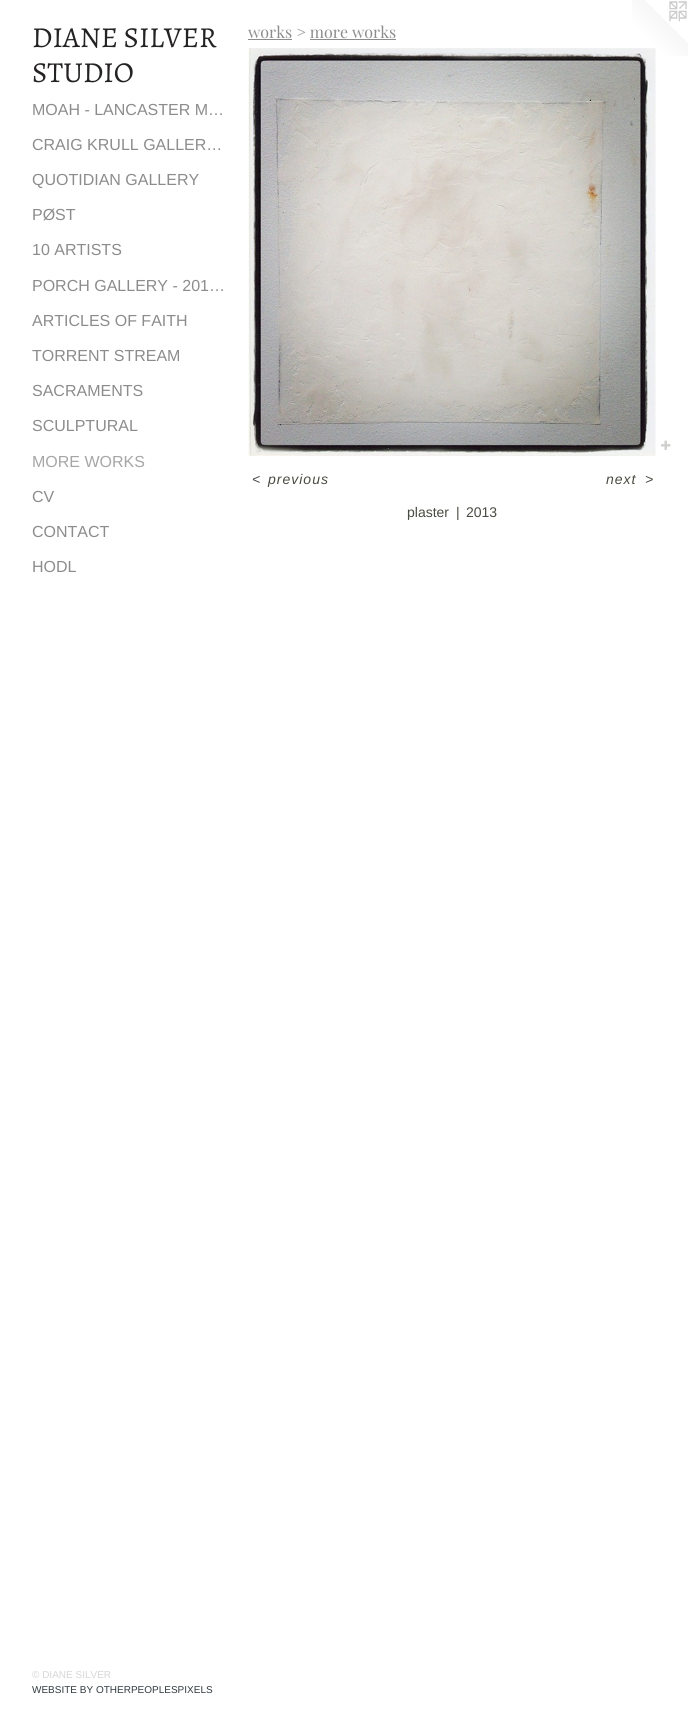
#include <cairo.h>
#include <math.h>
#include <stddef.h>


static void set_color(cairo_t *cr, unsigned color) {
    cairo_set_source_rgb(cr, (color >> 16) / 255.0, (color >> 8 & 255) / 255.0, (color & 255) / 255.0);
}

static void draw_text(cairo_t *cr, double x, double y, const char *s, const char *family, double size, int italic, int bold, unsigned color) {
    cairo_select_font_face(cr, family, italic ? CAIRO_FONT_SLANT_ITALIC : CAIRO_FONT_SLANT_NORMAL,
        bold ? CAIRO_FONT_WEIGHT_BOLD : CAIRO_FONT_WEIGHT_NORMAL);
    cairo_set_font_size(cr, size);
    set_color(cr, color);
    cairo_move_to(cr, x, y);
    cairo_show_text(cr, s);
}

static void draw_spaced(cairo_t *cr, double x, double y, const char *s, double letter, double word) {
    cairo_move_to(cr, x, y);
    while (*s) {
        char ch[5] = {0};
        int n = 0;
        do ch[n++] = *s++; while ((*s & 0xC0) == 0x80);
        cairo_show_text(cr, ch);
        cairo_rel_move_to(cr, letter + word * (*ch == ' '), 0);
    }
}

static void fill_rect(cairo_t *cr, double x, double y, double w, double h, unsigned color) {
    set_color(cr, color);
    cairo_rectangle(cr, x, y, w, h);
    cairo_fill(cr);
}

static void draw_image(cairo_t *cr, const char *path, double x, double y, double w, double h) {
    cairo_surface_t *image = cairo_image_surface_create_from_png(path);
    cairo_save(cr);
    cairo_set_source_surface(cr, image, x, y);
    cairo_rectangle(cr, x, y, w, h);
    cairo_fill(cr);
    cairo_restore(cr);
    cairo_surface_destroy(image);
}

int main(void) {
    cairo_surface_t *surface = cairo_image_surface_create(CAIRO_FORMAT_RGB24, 688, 1720);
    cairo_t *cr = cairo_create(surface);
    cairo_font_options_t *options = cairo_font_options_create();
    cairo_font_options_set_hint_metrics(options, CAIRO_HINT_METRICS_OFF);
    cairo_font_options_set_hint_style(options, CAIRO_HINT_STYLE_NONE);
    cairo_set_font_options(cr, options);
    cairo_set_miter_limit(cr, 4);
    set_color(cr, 0xFFFFFF);
    cairo_paint(cr);
    draw_text(cr, 32, 47, "DIANE SILVER", "Alegreya SC", 29, 0, 0, 0x252222);
    draw_text(cr, 32, 82, "STUDIO", "Alegreya SC", 29, 0, 0, 0x252222);
    draw_text(cr, 32, 115, "MOAH - LANCASTER M…", "Liberation Sans", 16, 0, 0, 0x8C8C8C);
    draw_text(cr, 32, 150, "CRAIG KRULL GALLER…", "Liberation Sans", 16, 0, 0, 0x8C8C8C);
    draw_text(cr, 32, 185, "QUOTIDIAN GALLERY", "Liberation Sans", 16, 0, 0, 0x8C8C8C);
    draw_text(cr, 32, 220, "PØST", "Liberation Sans", 16, 0, 0, 0x8C8C8C);
    draw_text(cr, 32, 255, "10 ARTISTS", "Liberation Sans", 16, 0, 0, 0x8C8C8C);
    draw_text(cr, 32, 291, "PORCH GALLERY - 201…", "Liberation Sans", 16, 0, 0, 0x8C8C8C);
    draw_text(cr, 32, 326, "ARTICLES OF FAITH", "Liberation Sans", 16, 0, 0, 0x8C8C8C);
    draw_text(cr, 32, 361, "TORRENT STREAM", "Liberation Sans", 16, 0, 0, 0x8C8C8C);
    draw_text(cr, 32, 396, "SACRAMENTS", "Liberation Sans", 16, 0, 0, 0x8C8C8C);
    draw_text(cr, 32, 431, "SCULPTURAL", "Liberation Sans", 16, 0, 0, 0x8C8C8C);
    draw_text(cr, 32, 467, "MORE WORKS", "Liberation Sans", 16, 0, 0, 0xA6A6A6);
    draw_text(cr, 32, 502, "CV", "Liberation Sans", 16, 0, 0, 0x8C8C8C);
    draw_text(cr, 32, 537, "CONTACT", "Liberation Sans", 16, 0, 0, 0x8C8C8C);
    draw_text(cr, 32, 572, "HODL", "Liberation Sans", 16, 0, 0, 0x8C8C8C);
    draw_text(cr, 32, 1678, "© DIANE SILVER", "Liberation Sans", 10, 0, 0, 0xD6D6D6);
    draw_text(cr, 32, 1693, "WEBSITE BY OTHERPEOPLESPIXELS", "Liberation Sans", 10, 0, 0, 0x313B3F);
    draw_text(cr, 248, 38, "works > more works", "Playfair Display", 16, 0, 0, 0x8C8C8C);
    fill_rect(cr, 248, 39, 44, 1, 0x8C8C8C);
    fill_rect(cr, 310, 39, 86, 1, 0x8C8C8C);
    draw_image(cr, "assets/img3.png", 632, 0, 56, 56);
    draw_image(cr, "assets/img1.png", 248, 48, 408, 408);
    draw_image(cr, "assets/img2.png", 661, 440, 10, 10);
    cairo_select_font_face(cr, "Liberation Sans", CAIRO_FONT_SLANT_ITALIC, CAIRO_FONT_WEIGHT_NORMAL);
    cairo_set_font_size(cr, 14);
    set_color(cr, 0x474C42);
    draw_spaced(cr, 252, 484, "<", 1, 0);
    draw_spaced(cr, 268, 484, "previous", 1, 0);
    draw_spaced(cr, 606, 484, "next", 1, 0);
    draw_spaced(cr, 645, 484, ">", 1, 0);
    draw_text(cr, 407, 517, "plaster", "Liberation Sans", 14, 0, 0, 0x474C42);
    draw_text(cr, 456, 517, "|", "Liberation Sans", 14, 0, 0, 0x474C42);
    draw_text(cr, 466, 517, "2013", "Liberation Sans", 14, 0, 0, 0x474C42);
    cairo_surface_write_to_png(surface, "output.png");
    cairo_font_options_destroy(options);
    cairo_destroy(cr);
    cairo_surface_destroy(surface);
    return 0;
}
